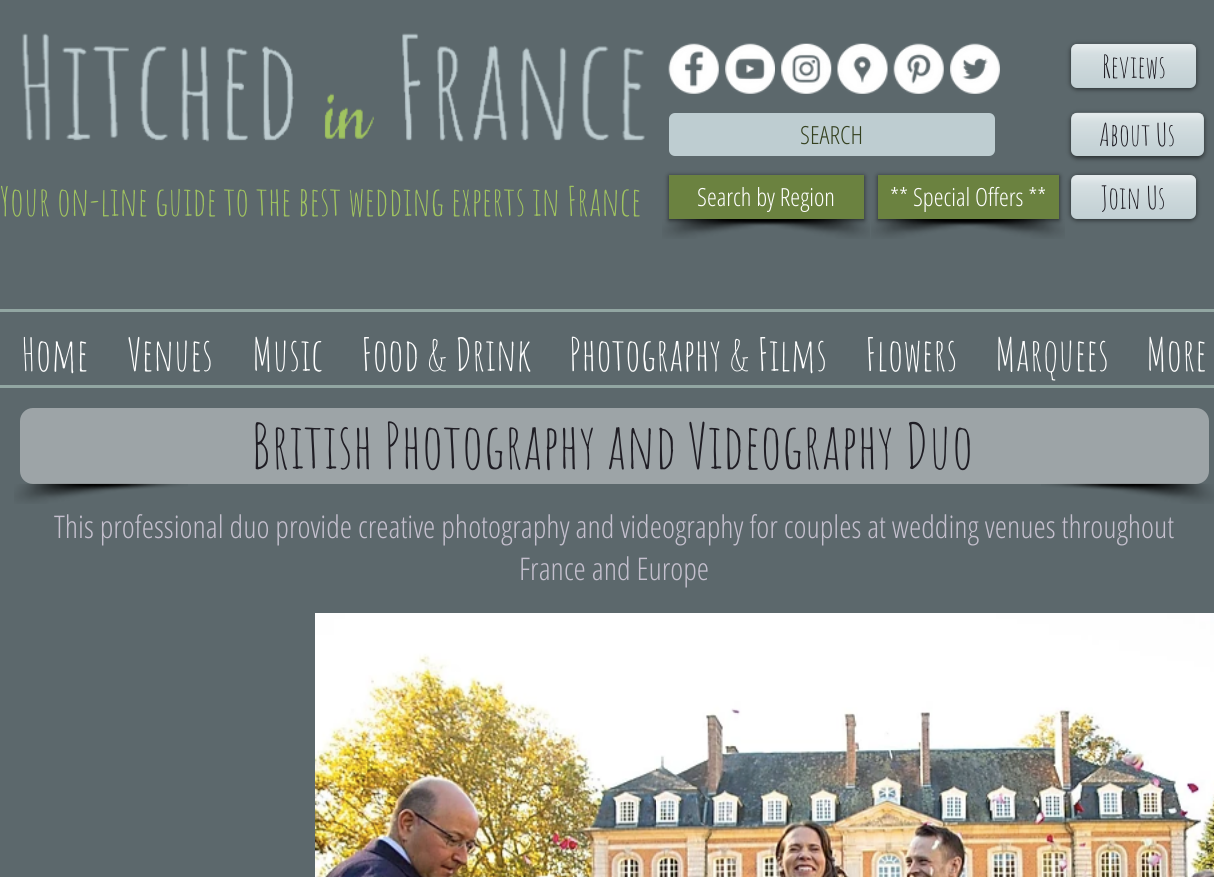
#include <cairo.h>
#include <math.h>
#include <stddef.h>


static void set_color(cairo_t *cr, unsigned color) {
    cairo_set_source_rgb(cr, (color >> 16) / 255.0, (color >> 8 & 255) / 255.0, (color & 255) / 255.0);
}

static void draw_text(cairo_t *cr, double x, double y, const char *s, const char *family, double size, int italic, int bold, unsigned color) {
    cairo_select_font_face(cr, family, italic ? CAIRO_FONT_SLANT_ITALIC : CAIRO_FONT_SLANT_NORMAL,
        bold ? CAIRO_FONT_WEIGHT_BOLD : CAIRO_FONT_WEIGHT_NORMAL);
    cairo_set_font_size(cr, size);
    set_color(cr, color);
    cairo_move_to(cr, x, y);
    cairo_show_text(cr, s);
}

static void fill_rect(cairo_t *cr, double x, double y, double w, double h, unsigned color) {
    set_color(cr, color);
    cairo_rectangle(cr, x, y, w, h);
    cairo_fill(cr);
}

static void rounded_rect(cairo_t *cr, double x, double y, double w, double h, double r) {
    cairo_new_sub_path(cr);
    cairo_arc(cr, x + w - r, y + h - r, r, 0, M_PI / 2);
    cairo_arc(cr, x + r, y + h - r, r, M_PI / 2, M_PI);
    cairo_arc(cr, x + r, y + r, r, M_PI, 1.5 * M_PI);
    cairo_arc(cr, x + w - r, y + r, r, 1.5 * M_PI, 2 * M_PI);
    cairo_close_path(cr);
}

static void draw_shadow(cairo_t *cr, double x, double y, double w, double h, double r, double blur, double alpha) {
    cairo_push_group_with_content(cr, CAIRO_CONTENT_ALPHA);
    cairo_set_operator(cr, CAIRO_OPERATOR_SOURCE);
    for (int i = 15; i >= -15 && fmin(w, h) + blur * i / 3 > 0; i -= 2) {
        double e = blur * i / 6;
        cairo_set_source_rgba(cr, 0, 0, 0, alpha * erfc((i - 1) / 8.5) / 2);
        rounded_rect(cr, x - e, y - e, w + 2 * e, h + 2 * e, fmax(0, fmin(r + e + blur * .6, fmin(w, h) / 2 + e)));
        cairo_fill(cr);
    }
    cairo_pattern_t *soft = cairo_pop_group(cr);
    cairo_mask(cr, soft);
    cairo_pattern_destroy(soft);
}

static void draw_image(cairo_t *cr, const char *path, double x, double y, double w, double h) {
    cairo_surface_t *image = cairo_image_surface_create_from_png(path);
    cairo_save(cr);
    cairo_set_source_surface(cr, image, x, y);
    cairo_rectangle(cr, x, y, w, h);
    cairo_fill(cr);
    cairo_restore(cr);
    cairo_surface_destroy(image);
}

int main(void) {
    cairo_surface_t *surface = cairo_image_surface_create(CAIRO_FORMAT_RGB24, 1214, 877);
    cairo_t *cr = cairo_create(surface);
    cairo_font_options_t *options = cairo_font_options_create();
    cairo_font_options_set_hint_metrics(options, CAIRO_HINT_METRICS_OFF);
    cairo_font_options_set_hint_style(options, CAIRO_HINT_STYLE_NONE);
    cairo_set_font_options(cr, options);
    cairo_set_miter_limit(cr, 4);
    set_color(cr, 0x5C686C);
    cairo_paint(cr);
    draw_image(cr, "assets/img1.png", 22, 33, 623, 109);
    draw_image(cr, "assets/img2.png", 668, 43, 51, 51);
    draw_image(cr, "assets/img3.png", 725, 43, 50, 51);
    draw_image(cr, "assets/img4.png", 781, 43, 51, 51);
    draw_image(cr, "assets/img5.png", 837, 43, 51, 51);
    draw_image(cr, "assets/img6.png", 893, 43, 51, 51);
    draw_image(cr, "assets/img7.png", 950, 43, 50, 51);
    set_color(cr, 0x000000);
    draw_shadow(cr, 1071, 45, 125, 44, 6, 2.5, 0.6);
    set_color(cr, 0xBECDD1);
    rounded_rect(cr, 1071, 44, 125, 44, 6);
    cairo_fill(cr);
    draw_image(cr, "assets/img8.png", 1071, 43, 126, 44);
    draw_text(cr, 1102, 78, "Reviews", "Amatic SC", 31.25, 0, 0, 0x1F1D24);
    set_color(cr, 0xBECDD1);
    rounded_rect(cr, 669, 113, 326, 43, 6);
    cairo_fill(cr);
    draw_text(cr, 800, 144, "SEARCH", "Open Sans Condensed Light", 25, 0, 0, 0x354120);
    set_color(cr, 0x000000);
    draw_shadow(cr, 1071, 114, 133, 44, 6, 2.5, 0.6);
    set_color(cr, 0xBECDD1);
    rounded_rect(cr, 1071, 113, 133, 43, 6);
    cairo_fill(cr);
    draw_image(cr, "assets/img9.png", 1071, 112, 133, 44);
    draw_text(cr, 1099, 146, "About Us", "Amatic SC", 31.25, 0, 0, 0x1F1D24);
    draw_text(cr, 0, 216, "Your on-line guide to the best wedding experts in France", "Amatic SC", 40, 0, 0, 0xA1C460);
    draw_image(cr, "assets/img10.png", 662, 219, 175, 20);
    draw_image(cr, "assets/img11.png", 718, 219, 152, 20);
    set_color(cr, 0x000000);
    draw_shadow(cr, 669, 176, 195, 44, 0, 2.5, 0.6);
    fill_rect(cr, 669, 175, 195, 44, 0x6B8240);
    draw_text(cr, 697, 206, "Search by Region", "Open Sans Condensed Light", 25, 0, 0, 0xFFFFFF);
    draw_image(cr, "assets/img12.png", 871, 219, 174, 20);
    draw_image(cr, "assets/img13.png", 896, 219, 169, 20);
    set_color(cr, 0x000000);
    draw_shadow(cr, 878, 176, 181, 44, 0, 2.5, 0.6);
    fill_rect(cr, 878, 175, 181, 44, 0x6B8240);
    draw_text(cr, 890, 206, "** Special Offers **", "Open Sans Condensed Light", 25, 0, 0, 0xFFFFFF);
    set_color(cr, 0x000000);
    draw_shadow(cr, 1071, 176, 125, 44, 6, 2.5, 0.6);
    set_color(cr, 0xBECDD1);
    rounded_rect(cr, 1071, 175, 125, 44, 6);
    cairo_fill(cr);
    draw_image(cr, "assets/img14.png", 1071, 175, 126, 43);
    draw_text(cr, 1101, 209, "Join Us", "Amatic SC", 31.25, 0, 0, 0x1F1D24);
    fill_rect(cr, 0, 309, 1214, 3, 0x92A6A2);
    draw_text(cr, 21, 371, "Home", "Amatic SC", 45, 0, 0, 0xFFFFFF);
    draw_text(cr, 127, 371, "Venues", "Amatic SC", 45, 0, 0, 0xFFFFFF);
    draw_text(cr, 252, 371, "Music", "Amatic SC", 45, 0, 0, 0xFFFFFF);
    draw_text(cr, 361, 371, "Food & Drink", "Amatic SC", 45, 0, 0, 0xFFFFFF);
    draw_text(cr, 569, 371, "Photography & Films", "Amatic SC", 45, 0, 0, 0xFFFFFF);
    draw_text(cr, 865, 371, "Flowers", "Amatic SC", 45, 0, 0, 0xFFFFFF);
    draw_text(cr, 995, 371, "Marquees", "Amatic SC", 45, 0, 0, 0xFFFFFF);
    draw_text(cr, 1146, 371, "More", "Amatic SC", 45, 0, 0, 0xFFFFFF);
    fill_rect(cr, 0, 385, 1214, 3, 0x92A6A2);
    draw_image(cr, "assets/img15.png", 14, 483, 174, 21);
    draw_image(cr, "assets/img16.png", 1041, 483, 173, 21);
    cairo_set_source_rgba(cr, 1, 1, 1, 0.4);
    rounded_rect(cr, 20, 408, 1189, 76, 13);
    cairo_fill(cr);
    draw_text(cr, 251, 469, "British Photography and Videography Duo", "Amatic SC", 62.5, 0, 0, 0x1F1D24);
    draw_text(cr, 54, 538, "This professional duo provide creative photography and videography for couples at wedding venues throughout", "Open Sans Condensed Light", 31.25, 0, 0, 0xC5C0CE);
    draw_text(cr, 519, 580, "France and Europe", "Open Sans Condensed Light", 31.25, 0, 0, 0xC5C0CE);
    draw_image(cr, "assets/img17.png", 315, 613, 899, 264);
    cairo_surface_write_to_png(surface, "output.png");
    cairo_font_options_destroy(options);
    cairo_destroy(cr);
    cairo_surface_destroy(surface);
    return 0;
}
